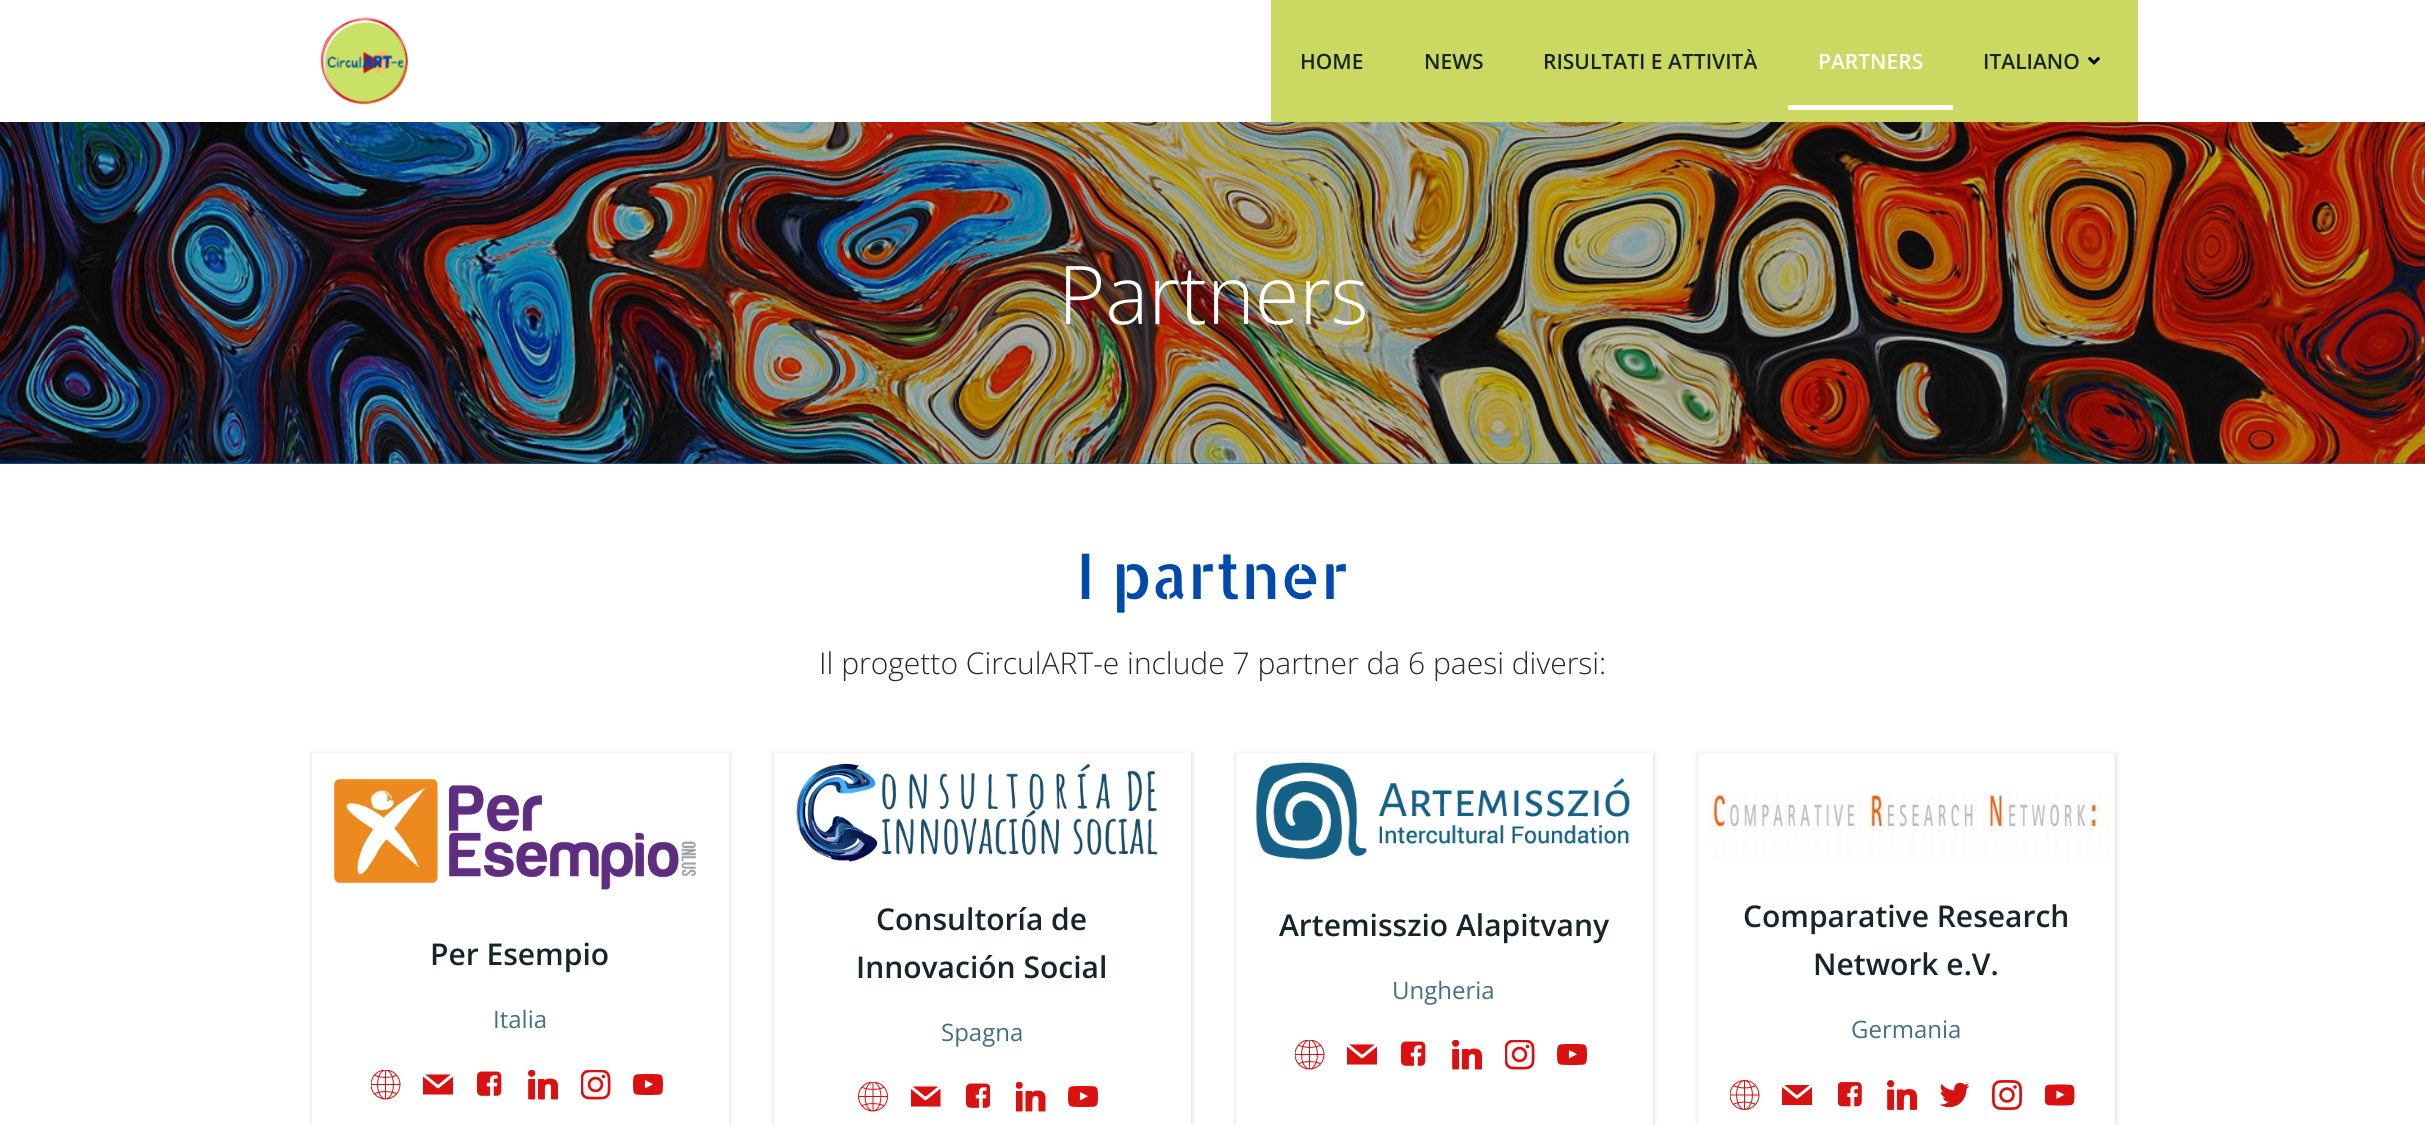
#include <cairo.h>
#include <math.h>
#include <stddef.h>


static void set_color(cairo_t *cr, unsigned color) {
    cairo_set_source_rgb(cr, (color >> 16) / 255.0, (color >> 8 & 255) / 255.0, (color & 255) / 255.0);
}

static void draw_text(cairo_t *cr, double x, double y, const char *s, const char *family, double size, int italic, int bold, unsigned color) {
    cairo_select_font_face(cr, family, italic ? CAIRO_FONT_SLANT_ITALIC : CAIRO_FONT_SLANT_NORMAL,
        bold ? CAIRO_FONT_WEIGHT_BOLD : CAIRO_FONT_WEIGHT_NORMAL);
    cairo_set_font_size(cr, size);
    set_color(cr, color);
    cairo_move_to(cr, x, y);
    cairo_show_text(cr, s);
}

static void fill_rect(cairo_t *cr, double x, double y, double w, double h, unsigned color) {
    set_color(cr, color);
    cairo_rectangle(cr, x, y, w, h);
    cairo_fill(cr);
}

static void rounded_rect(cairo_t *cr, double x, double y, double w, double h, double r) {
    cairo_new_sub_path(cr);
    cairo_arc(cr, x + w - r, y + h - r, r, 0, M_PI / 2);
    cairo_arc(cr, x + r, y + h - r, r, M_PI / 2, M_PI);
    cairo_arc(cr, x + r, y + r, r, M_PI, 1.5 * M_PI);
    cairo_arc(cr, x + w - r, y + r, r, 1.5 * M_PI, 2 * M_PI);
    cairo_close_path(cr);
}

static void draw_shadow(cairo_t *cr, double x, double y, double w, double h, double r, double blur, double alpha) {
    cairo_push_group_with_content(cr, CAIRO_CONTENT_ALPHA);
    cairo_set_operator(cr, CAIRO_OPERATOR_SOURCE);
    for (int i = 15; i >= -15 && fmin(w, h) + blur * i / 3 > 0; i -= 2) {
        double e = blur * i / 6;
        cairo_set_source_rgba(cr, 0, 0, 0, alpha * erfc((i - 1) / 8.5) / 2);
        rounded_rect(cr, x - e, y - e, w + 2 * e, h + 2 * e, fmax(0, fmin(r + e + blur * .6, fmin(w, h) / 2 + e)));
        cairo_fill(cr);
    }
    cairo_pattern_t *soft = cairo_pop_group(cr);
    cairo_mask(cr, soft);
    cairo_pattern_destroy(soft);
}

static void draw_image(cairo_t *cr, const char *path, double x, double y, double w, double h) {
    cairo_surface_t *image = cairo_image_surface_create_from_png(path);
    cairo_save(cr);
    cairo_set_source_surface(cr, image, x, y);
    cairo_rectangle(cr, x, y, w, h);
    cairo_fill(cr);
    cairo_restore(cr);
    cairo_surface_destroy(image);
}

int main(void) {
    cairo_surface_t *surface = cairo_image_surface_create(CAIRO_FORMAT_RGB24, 2425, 1125);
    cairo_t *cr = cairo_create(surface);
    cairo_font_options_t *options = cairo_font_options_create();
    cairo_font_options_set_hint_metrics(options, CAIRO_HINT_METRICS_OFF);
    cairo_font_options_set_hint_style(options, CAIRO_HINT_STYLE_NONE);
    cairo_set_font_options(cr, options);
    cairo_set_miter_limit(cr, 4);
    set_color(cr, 0xFFFFFF);
    cairo_paint(cr);
    draw_image(cr, "assets/img1.png", 320, 17, 88, 88);
    fill_rect(cr, 1271, 0, 867, 122, 0xCBD962);
    draw_text(cr, 1300, 69, "HOME", "Open Sans SemiBold", 21, 0, 0, 0x17252A);
    draw_text(cr, 1424, 69, "NEWS", "Open Sans SemiBold", 21, 0, 0, 0x17252A);
    draw_text(cr, 1543, 69, "RISULTATI E ATTIVITÀ", "Open Sans SemiBold", 21, 0, 0, 0x17252A);
    draw_text(cr, 1818, 69, "PARTNERS", "Open Sans SemiBold", 21, 0, 0, 0xFFFFFF);
    fill_rect(cr, 1788, 105, 165, 5, 0xFFFFFF);
    draw_text(cr, 1983, 69, "ITALIANO", "Open Sans SemiBold", 21, 0, 0, 0x17252A);
    draw_image(cr, "assets/img2.png", 2088, 56, 12, 9);
    fill_rect(cr, 0, 463, 2425, 1, 0x027AB0);
    draw_image(cr, "assets/img3.png", 0, 122, 2425, 342);
    draw_text(cr, 1058, 324, "Partners", "Open Sans Light", 81, 0, 0, 0xFFFFFF);
    draw_text(cr, 1076, 599, "I partner", "Allerta Stencil", 63, 0, 0, 0x004AAD);
    draw_text(cr, 819, 674, "Il progetto CirculART-e include 7 partner da 6 paesi diversi:", "Open Sans Light", 30, 0, 0, 0x25292A);
    cairo_save(cr);
    cairo_set_fill_rule(cr, CAIRO_FILL_RULE_EVEN_ODD);
    cairo_new_path(cr);
    cairo_move_to(cr, 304, 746);
    cairo_line_to(cr, 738, 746);
    cairo_line_to(cr, 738, 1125);
    cairo_line_to(cr, 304, 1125);
    cairo_close_path(cr);
    cairo_move_to(cr, 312, 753);
    cairo_line_to(cr, 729, 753);
    cairo_line_to(cr, 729, 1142);
    cairo_line_to(cr, 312, 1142);
    cairo_close_path(cr);
    cairo_clip(cr);
    set_color(cr, 0x000000);
    draw_shadow(cr, 311, 753, 420, 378, 0, 2, 0.1);
    cairo_restore(cr);
    draw_image(cr, "assets/img4.png", 334, 779, 362, 111);
    draw_text(cr, 430, 965, "Per Esempio", "Open Sans SemiBold", 30, 0, 0, 0x17252A);
    draw_text(cr, 493, 1028, "Italia", "Open Sans", 24, 0, 0, 0x46707F);
    draw_image(cr, "assets/img5.png", 371, 1070, 30, 30);
    draw_image(cr, "assets/img6.png", 423, 1074, 30, 21);
    draw_image(cr, "assets/img7.png", 477, 1071, 25, 25);
    draw_image(cr, "assets/img8.png", 528, 1070, 30, 30);
    draw_image(cr, "assets/img9.png", 581, 1070, 30, 30);
    draw_image(cr, "assets/img10.png", 633, 1073, 30, 23);
    cairo_save(cr);
    cairo_set_fill_rule(cr, CAIRO_FILL_RULE_EVEN_ODD);
    cairo_new_path(cr);
    cairo_move_to(cr, 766, 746);
    cairo_line_to(cr, 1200, 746);
    cairo_line_to(cr, 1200, 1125);
    cairo_line_to(cr, 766, 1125);
    cairo_close_path(cr);
    cairo_move_to(cr, 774, 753);
    cairo_line_to(cr, 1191, 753);
    cairo_line_to(cr, 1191, 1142);
    cairo_line_to(cr, 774, 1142);
    cairo_close_path(cr);
    cairo_clip(cr);
    set_color(cr, 0x000000);
    draw_shadow(cr, 773, 753, 420, 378, 0, 2, 0.1);
    cairo_restore(cr);
    draw_image(cr, "assets/img11.png", 796, 763, 362, 99);
    draw_text(cr, 876, 930, "Consultoría de", "Open Sans SemiBold", 30, 0, 0, 0x17252A);
    draw_text(cr, 856, 978, "Innovación Social", "Open Sans SemiBold", 30, 0, 0, 0x17252A);
    draw_text(cr, 941, 1041, "Spagna", "Open Sans", 24, 0, 0, 0x46707F);
    draw_image(cr, "assets/img12.png", 858, 1082, 30, 30);
    draw_image(cr, "assets/img13.png", 911, 1086, 30, 21);
    draw_image(cr, "assets/img14.png", 966, 1083, 24, 25);
    draw_image(cr, "assets/img15.png", 1016, 1082, 30, 30);
    draw_image(cr, "assets/img10.png", 1068, 1085, 30, 23);
    cairo_save(cr);
    cairo_set_fill_rule(cr, CAIRO_FILL_RULE_EVEN_ODD);
    cairo_new_path(cr);
    cairo_move_to(cr, 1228, 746);
    cairo_line_to(cr, 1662, 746);
    cairo_line_to(cr, 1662, 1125);
    cairo_line_to(cr, 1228, 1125);
    cairo_close_path(cr);
    cairo_move_to(cr, 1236, 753);
    cairo_line_to(cr, 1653, 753);
    cairo_line_to(cr, 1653, 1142);
    cairo_line_to(cr, 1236, 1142);
    cairo_close_path(cr);
    cairo_clip(cr);
    set_color(cr, 0x000000);
    draw_shadow(cr, 1235, 753, 420, 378, 0, 2, 0.1);
    cairo_restore(cr);
    draw_image(cr, "assets/img16.png", 1256, 762, 374, 98);
    draw_text(cr, 1279, 936, "Artemisszio Alapitvany", "Open Sans SemiBold", 30, 0, 0, 0x17252A);
    draw_text(cr, 1392, 999, "Ungheria", "Open Sans", 24, 0, 0, 0x46707F);
    draw_image(cr, "assets/img5.png", 1295, 1040, 30, 30);
    draw_image(cr, "assets/img6.png", 1347, 1044, 30, 21);
    draw_image(cr, "assets/img7.png", 1401, 1041, 25, 25);
    draw_image(cr, "assets/img8.png", 1452, 1040, 30, 30);
    draw_image(cr, "assets/img9.png", 1505, 1040, 30, 30);
    draw_image(cr, "assets/img10.png", 1557, 1043, 30, 23);
    cairo_save(cr);
    cairo_set_fill_rule(cr, CAIRO_FILL_RULE_EVEN_ODD);
    cairo_new_path(cr);
    cairo_move_to(cr, 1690, 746);
    cairo_line_to(cr, 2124, 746);
    cairo_line_to(cr, 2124, 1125);
    cairo_line_to(cr, 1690, 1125);
    cairo_close_path(cr);
    cairo_move_to(cr, 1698, 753);
    cairo_line_to(cr, 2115, 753);
    cairo_line_to(cr, 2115, 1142);
    cairo_line_to(cr, 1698, 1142);
    cairo_close_path(cr);
    cairo_clip(cr);
    set_color(cr, 0x000000);
    draw_shadow(cr, 1697, 753, 420, 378, 0, 2, 0.1);
    cairo_restore(cr);
    draw_image(cr, "assets/img17.png", 1709, 793, 401, 68);
    draw_text(cr, 1743, 927, "Comparative Research", "Open Sans SemiBold", 30, 0, 0, 0x17252A);
    draw_text(cr, 1813, 975, "Network e.V.", "Open Sans SemiBold", 30, 0, 0, 0x17252A);
    draw_text(cr, 1851, 1038, "Germania", "Open Sans", 24, 0, 0, 0x46707F);
    draw_image(cr, "assets/img18.png", 1730, 1080, 30, 30);
    draw_image(cr, "assets/img19.png", 1782, 1085, 30, 20);
    draw_image(cr, "assets/img20.png", 1838, 1082, 24, 25);
    draw_image(cr, "assets/img21.png", 1887, 1080, 30, 30);
    draw_image(cr, "assets/img22.png", 1940, 1082, 30, 26);
    draw_image(cr, "assets/img23.png", 1992, 1080, 30, 30);
    draw_image(cr, "assets/img24.png", 2045, 1084, 30, 22);
    cairo_surface_write_to_png(surface, "output.png");
    cairo_font_options_destroy(options);
    cairo_destroy(cr);
    cairo_surface_destroy(surface);
    return 0;
}
